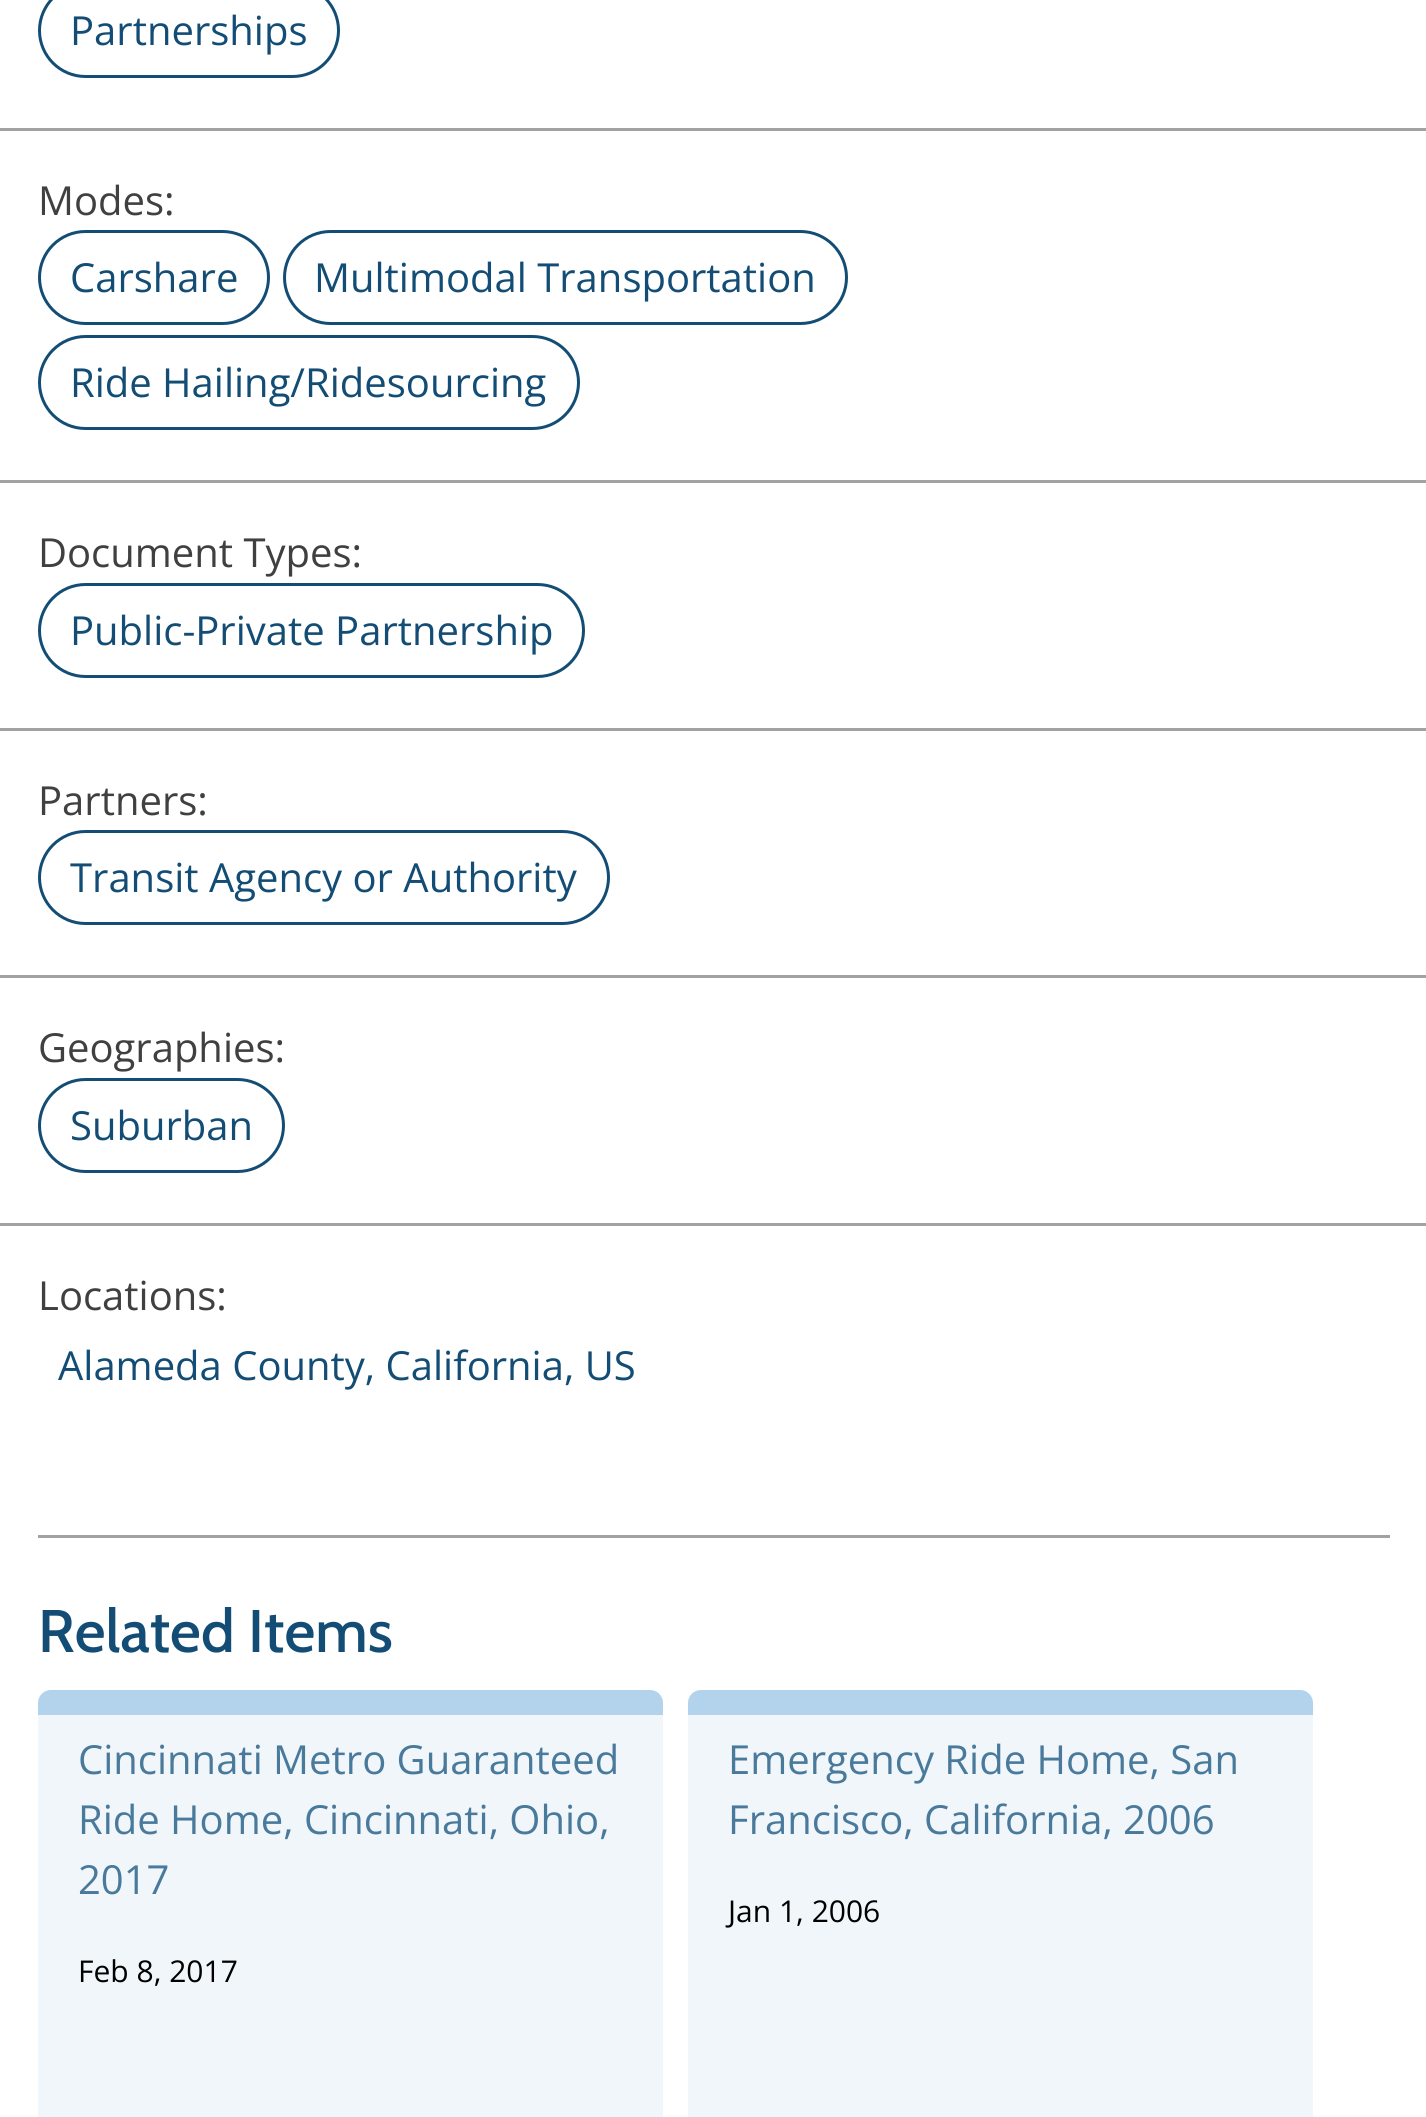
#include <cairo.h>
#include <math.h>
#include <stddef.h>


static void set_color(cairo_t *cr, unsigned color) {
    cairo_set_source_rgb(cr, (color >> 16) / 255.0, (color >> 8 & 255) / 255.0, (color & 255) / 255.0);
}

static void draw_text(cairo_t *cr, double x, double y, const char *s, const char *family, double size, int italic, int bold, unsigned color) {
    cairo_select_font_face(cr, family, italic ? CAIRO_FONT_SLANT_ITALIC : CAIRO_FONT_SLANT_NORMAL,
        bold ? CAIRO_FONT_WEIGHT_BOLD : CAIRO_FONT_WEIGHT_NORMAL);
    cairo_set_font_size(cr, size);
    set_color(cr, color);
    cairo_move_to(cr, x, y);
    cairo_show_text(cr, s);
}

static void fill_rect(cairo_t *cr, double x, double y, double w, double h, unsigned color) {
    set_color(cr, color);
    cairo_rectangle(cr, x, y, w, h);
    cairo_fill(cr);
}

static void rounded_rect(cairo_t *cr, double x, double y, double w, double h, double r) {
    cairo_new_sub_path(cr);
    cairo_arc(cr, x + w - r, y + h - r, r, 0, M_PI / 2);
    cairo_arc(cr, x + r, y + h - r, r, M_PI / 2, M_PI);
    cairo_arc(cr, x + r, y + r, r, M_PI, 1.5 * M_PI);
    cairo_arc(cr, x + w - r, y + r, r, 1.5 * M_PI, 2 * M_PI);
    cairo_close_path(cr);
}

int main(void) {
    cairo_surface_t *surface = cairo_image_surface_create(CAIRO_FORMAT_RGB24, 1426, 2117);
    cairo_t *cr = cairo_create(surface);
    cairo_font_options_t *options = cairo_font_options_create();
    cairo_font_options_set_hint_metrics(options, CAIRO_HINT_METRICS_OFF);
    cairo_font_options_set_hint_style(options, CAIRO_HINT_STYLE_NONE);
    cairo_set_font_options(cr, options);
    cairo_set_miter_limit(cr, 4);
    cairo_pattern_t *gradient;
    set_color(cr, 0xFFFFFF);
    cairo_paint(cr);
    fill_rect(cr, 38, 1535, 1352, 3, 0xA2A2A2);
    fill_rect(cr, 0, 128, 1426, 3, 0xA2A2A2);
    rounded_rect(cr, 39.5, -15.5, 299, 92, 46);
    set_color(cr, 0x134D75);
    cairo_set_line_width(cr, 3);
    cairo_stroke(cr);
    draw_text(cr, 70, 45, "Partnerships", "Open Sans", 40, 0, 0, 0x134D75);
    draw_text(cr, 38, 215, "Modes:", "Open Sans", 40, 0, 0, 0x404040);
    fill_rect(cr, 0, 480, 1426, 3, 0xA2A2A2);
    rounded_rect(cr, 39.5, 231.5, 229, 92, 46);
    set_color(cr, 0x134D75);
    cairo_stroke(cr);
    draw_text(cr, 70, 292, "Carshare", "Open Sans", 40, 0, 0, 0x134D75);
    rounded_rect(cr, 284.5, 231.5, 562, 92, 46);
    cairo_stroke(cr);
    draw_text(cr, 314, 292, "Multimodal Transportation", "Open Sans", 40, 0, 0, 0x134D75);
    rounded_rect(cr, 39.5, 336.5, 539, 92, 46);
    cairo_stroke(cr);
    draw_text(cr, 70, 397, "Ride Hailing/Ridesourcing", "Open Sans", 40, 0, 0, 0x134D75);
    draw_text(cr, 38, 567, "Document Types:", "Open Sans", 40, 0, 0, 0x404040);
    fill_rect(cr, 0, 728, 1426, 3, 0xA2A2A2);
    rounded_rect(cr, 39.5, 584.5, 544, 92, 46);
    set_color(cr, 0x134D75);
    cairo_stroke(cr);
    draw_text(cr, 70, 645, "Public-Private Partnership", "Open Sans", 40, 0, 0, 0x134D75);
    draw_text(cr, 38, 815, "Partners:", "Open Sans", 40, 0, 0, 0x404040);
    fill_rect(cr, 0, 975, 1426, 3, 0xA2A2A2);
    rounded_rect(cr, 39.5, 831.5, 569, 92, 46);
    set_color(cr, 0x134D75);
    cairo_stroke(cr);
    draw_text(cr, 70, 892, "Transit Agency or Authority", "Open Sans", 40, 0, 0, 0x134D75);
    draw_text(cr, 38, 1062, "Geographies:", "Open Sans", 40, 0, 0, 0x404040);
    fill_rect(cr, 0, 1223, 1426, 3, 0xA2A2A2);
    rounded_rect(cr, 39.5, 1079.5, 244, 92, 46);
    set_color(cr, 0x134D75);
    cairo_stroke(cr);
    draw_text(cr, 70, 1140, "Suburban", "Open Sans", 40, 0, 0, 0x134D75);
    draw_text(cr, 38, 1310, "Locations:", "Open Sans", 40, 0, 0, 0x404040);
    draw_text(cr, 58, 1380, "Alameda County, California, US", "Open Sans", 40, 0, 0, 0x134D75);
    draw_text(cr, 38, 1652, "Related Items", "Cabin Medium", 60, 0, 0, 0x134D75);
    set_color(cr, 0xF0F6FA);
    rounded_rect(cr, 38, 1690, 625, 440, 13);
    cairo_fill(cr);
    gradient = cairo_pattern_create_linear(350, 1690, 350, 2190);
    cairo_pattern_add_color_stop_rgba(gradient, 0, 0.698, 0.827, 0.922, 1);
    cairo_pattern_add_color_stop_rgba(gradient, 0.05, 0.698, 0.827, 0.922, 1);
    cairo_pattern_add_color_stop_rgba(gradient, 0.05, 0.698, 0.827, 0.922, 0);
    cairo_pattern_add_color_stop_rgba(gradient, 0.2, 0, 0, 0, 0);
    cairo_set_source(cr, gradient);
    cairo_pattern_destroy(gradient);
    rounded_rect(cr, 38, 1690, 625, 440, 13);
    cairo_fill(cr);
    draw_text(cr, 78, 1774, "Cincinnati Metro Guaranteed", "Open Sans", 40, 0, 0, 0x4A7A9B);
    draw_text(cr, 78, 1834, "Ride Home, Cincinnati, Ohio,", "Open Sans", 40, 0, 0, 0x4A7A9B);
    draw_text(cr, 78, 1894, "2017", "Open Sans", 40, 0, 0, 0x4A7A9B);
    draw_text(cr, 78, 1982, "Feb 8, 2017", "Open Sans", 30, 0, 0, 0x000000);
    set_color(cr, 0xF0F6FA);
    rounded_rect(cr, 688, 1690, 625, 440, 13);
    cairo_fill(cr);
    gradient = cairo_pattern_create_linear(1000, 1690, 1000, 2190);
    cairo_pattern_add_color_stop_rgba(gradient, 0, 0.698, 0.827, 0.922, 1);
    cairo_pattern_add_color_stop_rgba(gradient, 0.05, 0.698, 0.827, 0.922, 1);
    cairo_pattern_add_color_stop_rgba(gradient, 0.05, 0.698, 0.827, 0.922, 0);
    cairo_pattern_add_color_stop_rgba(gradient, 0.2, 0, 0, 0, 0);
    cairo_set_source(cr, gradient);
    cairo_pattern_destroy(gradient);
    rounded_rect(cr, 688, 1690, 625, 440, 13);
    cairo_fill(cr);
    draw_text(cr, 728, 1774, "Emergency Ride Home, San", "Open Sans", 40, 0, 0, 0x4A7A9B);
    draw_text(cr, 728, 1834, "Francisco, California, 2006", "Open Sans", 40, 0, 0, 0x4A7A9B);
    draw_text(cr, 728, 1922, "Jan 1, 2006", "Open Sans", 30, 0, 0, 0x000000);
    cairo_surface_write_to_png(surface, "output.png");
    cairo_font_options_destroy(options);
    cairo_destroy(cr);
    cairo_surface_destroy(surface);
    return 0;
}
